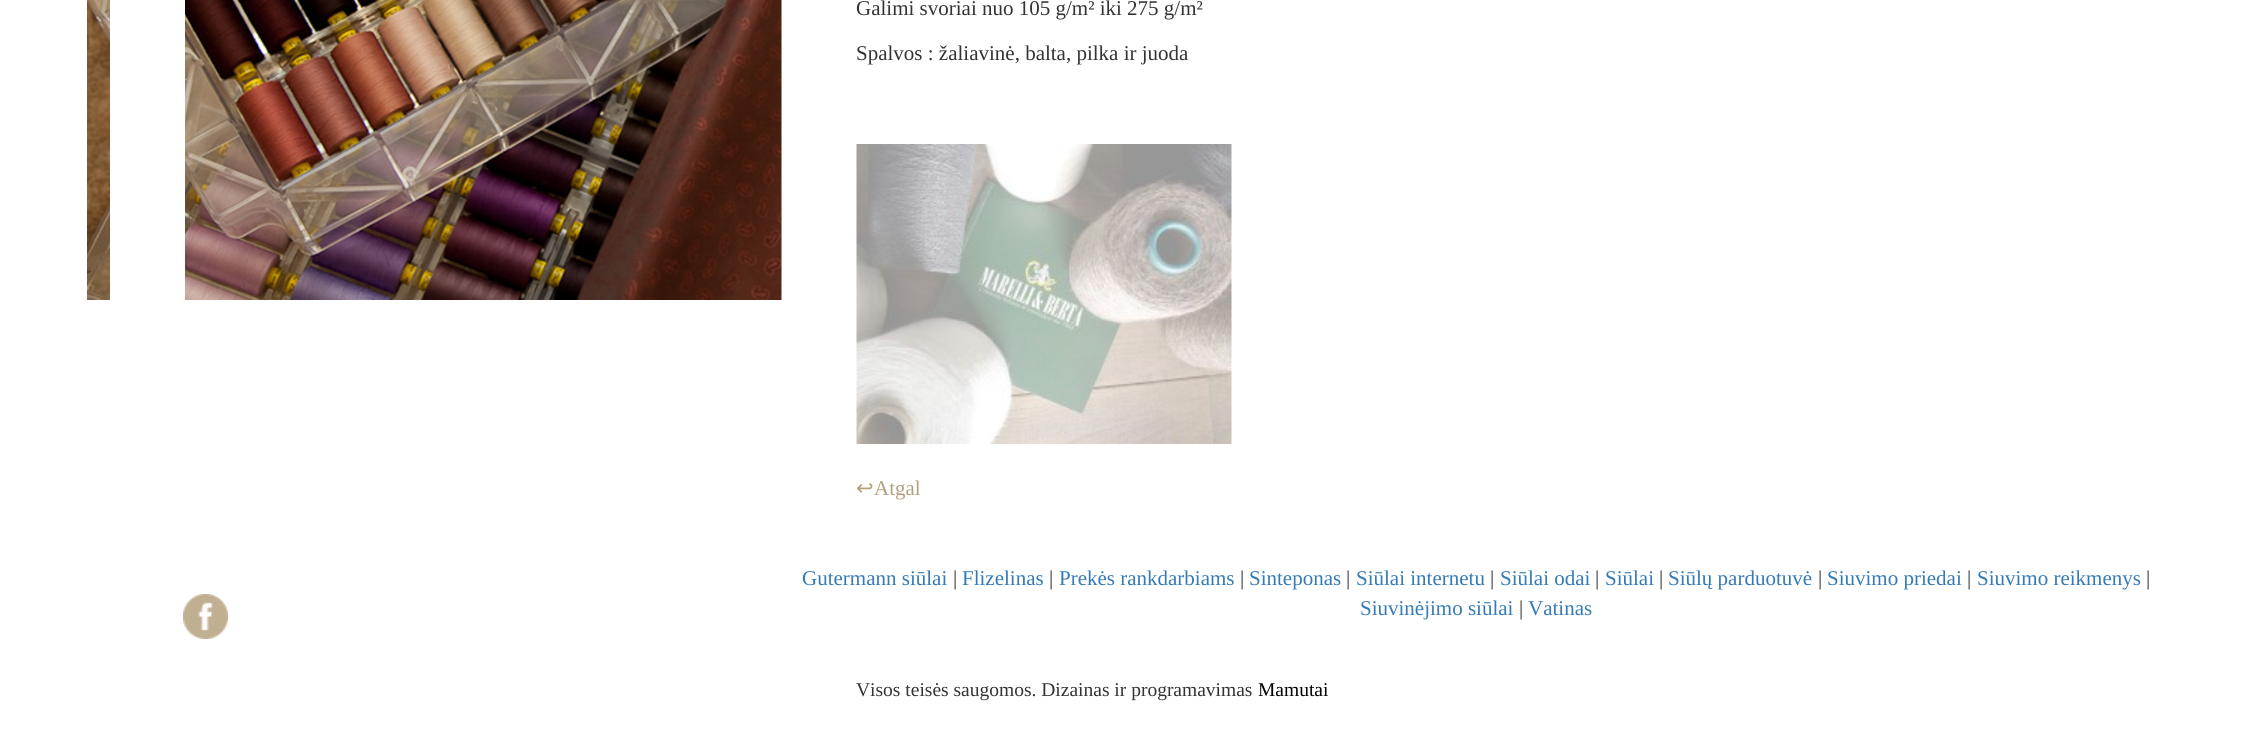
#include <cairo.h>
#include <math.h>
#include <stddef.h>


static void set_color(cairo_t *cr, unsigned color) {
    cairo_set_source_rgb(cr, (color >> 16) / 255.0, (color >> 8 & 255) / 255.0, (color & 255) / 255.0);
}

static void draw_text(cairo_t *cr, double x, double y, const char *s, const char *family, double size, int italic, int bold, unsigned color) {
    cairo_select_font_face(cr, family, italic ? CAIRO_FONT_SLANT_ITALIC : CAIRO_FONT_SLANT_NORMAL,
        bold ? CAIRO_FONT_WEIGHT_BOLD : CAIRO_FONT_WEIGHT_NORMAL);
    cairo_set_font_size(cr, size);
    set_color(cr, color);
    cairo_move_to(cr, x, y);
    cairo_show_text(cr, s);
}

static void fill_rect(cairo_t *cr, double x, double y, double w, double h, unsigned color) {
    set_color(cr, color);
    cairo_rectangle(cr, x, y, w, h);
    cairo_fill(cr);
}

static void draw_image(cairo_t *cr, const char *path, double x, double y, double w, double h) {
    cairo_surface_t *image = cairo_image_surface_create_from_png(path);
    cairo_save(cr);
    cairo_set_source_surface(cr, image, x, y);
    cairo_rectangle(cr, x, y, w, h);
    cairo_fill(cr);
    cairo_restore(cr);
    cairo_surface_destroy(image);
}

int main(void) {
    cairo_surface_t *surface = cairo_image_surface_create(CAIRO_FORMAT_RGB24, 2257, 749);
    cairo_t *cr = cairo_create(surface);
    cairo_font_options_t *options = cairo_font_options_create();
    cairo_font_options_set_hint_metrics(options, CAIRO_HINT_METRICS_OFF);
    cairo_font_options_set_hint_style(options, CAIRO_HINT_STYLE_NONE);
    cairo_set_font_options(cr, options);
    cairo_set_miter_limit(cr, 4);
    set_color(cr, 0xFFFFFF);
    cairo_paint(cr);
    draw_image(cr, "assets/img1.png", 87, 0, 695, 300);
    fill_rect(cr, 110, 0, 75, 300, 0xFFFFFF);
    draw_text(cr, 856, 15, "Galimi svoriai nuo 105 g/m² iki 275 g/m²", "Liberation Serif", 21, 0, 0, 0x333333);
    draw_text(cr, 856, 60, "Spalvos : žaliavinė, balta, pilka ir juoda", "Liberation Serif", 21, 0, 0, 0x333333);
    draw_image(cr, "assets/img2.png", 856, 144, 376, 300);
    draw_text(cr, 856, 495, "↩", "DejaVu Sans", 21, 0, 0, 0xB39F7A);
    draw_text(cr, 874, 495, "Atgal", "Liberation Serif", 21, 0, 0, 0xB39F7A);
    draw_image(cr, "assets/img3.png", 183, 594, 45, 45);
    draw_text(cr, 802, 585, "Gutermann siūlai", "Liberation Serif", 21, 0, 0, 0x337AB7);
    draw_text(cr, 953, 585, "|", "Liberation Serif", 21, 0, 0, 0x333333);
    draw_text(cr, 962, 585, "Flizelinas", "Liberation Serif", 21, 0, 0, 0x337AB7);
    draw_text(cr, 1049, 585, "|", "Liberation Serif", 21, 0, 0, 0x333333);
    draw_text(cr, 1059, 585, "Prekės rankdarbiams", "Liberation Serif", 21, 0, 0, 0x337AB7);
    draw_text(cr, 1240, 585, "|", "Liberation Serif", 21, 0, 0, 0x333333);
    draw_text(cr, 1249, 585, "Sinteponas", "Liberation Serif", 21, 0, 0, 0x337AB7);
    draw_text(cr, 1346, 585, "|", "Liberation Serif", 21, 0, 0, 0x333333);
    draw_text(cr, 1356, 585, "Siūlai internetu", "Liberation Serif", 21, 0, 0, 0x337AB7);
    draw_text(cr, 1490, 585, "|", "Liberation Serif", 21, 0, 0, 0x333333);
    draw_text(cr, 1500, 585, "Siūlai odai", "Liberation Serif", 21, 0, 0, 0x337AB7);
    draw_text(cr, 1595, 585, "|", "Liberation Serif", 21, 0, 0, 0x333333);
    draw_text(cr, 1605, 585, "Siūlai", "Liberation Serif", 21, 0, 0, 0x337AB7);
    draw_text(cr, 1659, 585, "|", "Liberation Serif", 21, 0, 0, 0x333333);
    draw_text(cr, 1668, 585, "Siūlų parduotuvė", "Liberation Serif", 21, 0, 0, 0x337AB7);
    draw_text(cr, 1818, 585, "|", "Liberation Serif", 21, 0, 0, 0x333333);
    draw_text(cr, 1827, 585, "Siuvimo priedai", "Liberation Serif", 21, 0, 0, 0x337AB7);
    draw_text(cr, 1967, 585, "|", "Liberation Serif", 21, 0, 0, 0x333333);
    draw_text(cr, 1977, 585, "Siuvimo reikmenys", "Liberation Serif", 21, 0, 0, 0x337AB7);
    draw_text(cr, 2146, 585, "|", "Liberation Serif", 21, 0, 0, 0x333333);
    draw_text(cr, 1360, 615, "Siuvinėjimo siūlai", "Liberation Serif", 21, 0, 0, 0x337AB7);
    draw_text(cr, 1519, 615, "|", "Liberation Serif", 21, 0, 0, 0x333333);
    draw_text(cr, 1528, 615, "Vatinas", "Liberation Serif", 21, 0, 0, 0x337AB7);
    draw_text(cr, 856, 696, "Visos teisės saugomos. Dizainas ir programavimas", "Liberation Serif", 19.5, 0, 0, 0x333333);
    draw_text(cr, 1258, 696, "Mamutai", "Liberation Serif", 19.5, 0, 0, 0x000000);
    cairo_surface_write_to_png(surface, "output.png");
    cairo_font_options_destroy(options);
    cairo_destroy(cr);
    cairo_surface_destroy(surface);
    return 0;
}
